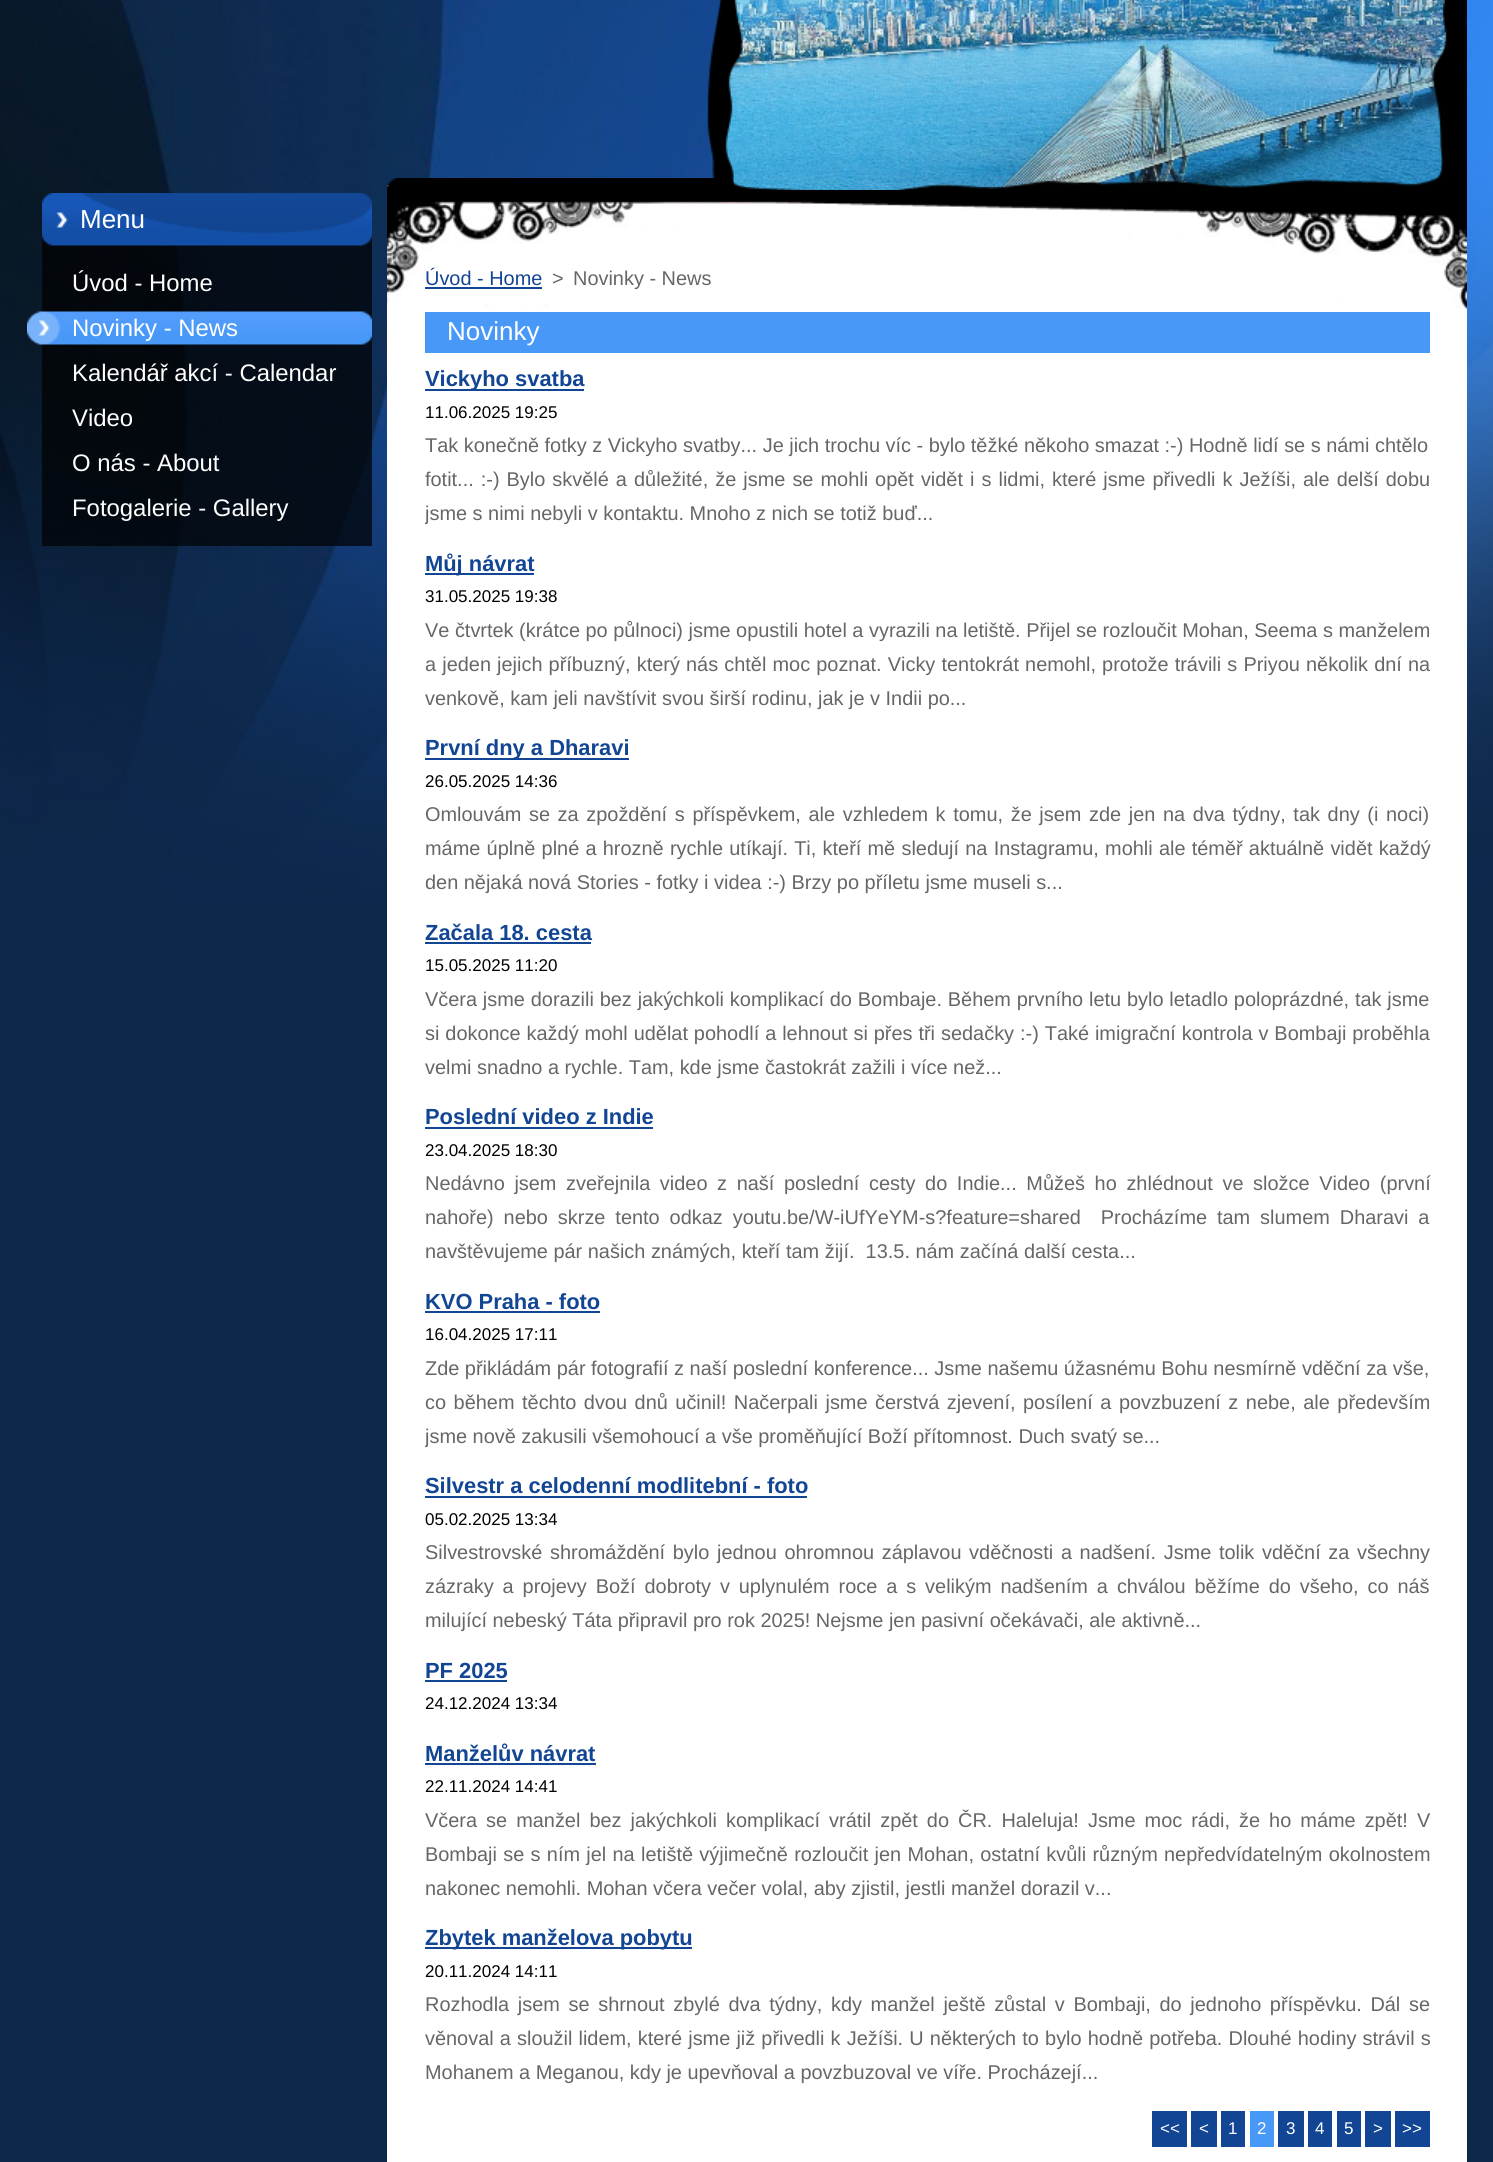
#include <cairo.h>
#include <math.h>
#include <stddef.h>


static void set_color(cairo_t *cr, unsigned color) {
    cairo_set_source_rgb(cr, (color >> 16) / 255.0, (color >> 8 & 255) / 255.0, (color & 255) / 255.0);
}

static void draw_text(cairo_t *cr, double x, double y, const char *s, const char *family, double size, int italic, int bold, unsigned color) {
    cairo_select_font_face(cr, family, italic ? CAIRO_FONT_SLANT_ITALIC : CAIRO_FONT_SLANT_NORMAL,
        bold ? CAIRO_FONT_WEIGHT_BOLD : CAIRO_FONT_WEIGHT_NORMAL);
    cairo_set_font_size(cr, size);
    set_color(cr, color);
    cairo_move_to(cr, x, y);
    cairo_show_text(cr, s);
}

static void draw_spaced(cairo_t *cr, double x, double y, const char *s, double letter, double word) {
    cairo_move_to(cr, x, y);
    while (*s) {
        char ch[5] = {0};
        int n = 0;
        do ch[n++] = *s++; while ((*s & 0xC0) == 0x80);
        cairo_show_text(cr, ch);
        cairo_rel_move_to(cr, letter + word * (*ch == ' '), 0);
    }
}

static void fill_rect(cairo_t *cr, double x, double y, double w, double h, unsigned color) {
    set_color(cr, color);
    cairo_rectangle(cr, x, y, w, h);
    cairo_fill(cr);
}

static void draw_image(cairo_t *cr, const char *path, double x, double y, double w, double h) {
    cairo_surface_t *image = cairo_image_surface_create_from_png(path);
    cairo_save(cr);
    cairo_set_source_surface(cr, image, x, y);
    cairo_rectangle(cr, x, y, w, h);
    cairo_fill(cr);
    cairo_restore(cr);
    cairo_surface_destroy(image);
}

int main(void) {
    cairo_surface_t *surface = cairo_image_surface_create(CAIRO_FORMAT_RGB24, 1493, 2162);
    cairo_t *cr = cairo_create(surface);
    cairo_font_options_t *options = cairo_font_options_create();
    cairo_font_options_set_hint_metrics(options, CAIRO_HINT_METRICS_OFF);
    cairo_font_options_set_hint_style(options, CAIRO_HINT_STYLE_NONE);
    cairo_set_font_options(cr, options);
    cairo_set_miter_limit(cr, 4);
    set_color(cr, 0x0D274A);
    cairo_paint(cr);
    draw_image(cr, "assets/img1.png", 0, 0, 1493, 902);
    fill_rect(cr, 387, 185, 1080, 1977, 0xFFFFFF);
    draw_image(cr, "assets/img2.png", 387, 178, 1080, 15);
    draw_image(cr, "assets/img4.png", 725, 0, 722, 190);
    draw_image(cr, "assets/img3.png", 707, 0, 760, 190);
    cairo_set_source_rgba(cr, 0, 0, 0, 0.7);
    cairo_rectangle(cr, 42, 245, 330, 301);
    cairo_fill(cr);
    draw_image(cr, "assets/img5.png", 42, 193, 330, 53);
    draw_text(cr, 80, 228, "Menu", "Liberation Sans", 26, 0, 0, 0xFFFFFF);
    draw_text(cr, 72, 291, "Úvod - Home", "Liberation Sans", 23.9, 0, 0, 0xFFFFFF);
    draw_image(cr, "assets/img6.png", 27, 311, 345, 34);
    draw_text(cr, 72, 336, "Novinky - News", "Liberation Sans", 23.9, 0, 0, 0xFFFFFF);
    draw_text(cr, 72, 381, "Kalendář akcí - Calendar", "Liberation Sans", 23.9, 0, 0, 0xFFFFFF);
    draw_text(cr, 72, 426, "Video", "Liberation Sans", 23.9, 0, 0, 0xFFFFFF);
    draw_text(cr, 72, 471, "O nás - About", "Liberation Sans", 23.9, 0, 0, 0xFFFFFF);
    draw_text(cr, 72, 516, "Fotogalerie - Gallery", "Liberation Sans", 23.9, 0, 0, 0xFFFFFF);
    draw_image(cr, "assets/img7.png", 387, 193, 1080, 116);
    draw_text(cr, 425, 285, "Úvod - Home", "Liberation Sans", 19.92, 0, 0, 0x124593);
    fill_rect(cr, 425, 287, 117, 2, 0x124593);
    draw_text(cr, 552, 285, ">", "Liberation Sans", 19.92, 0, 0, 0x666666);
    draw_text(cr, 573, 285, "Novinky - News", "Liberation Sans", 19.92, 0, 0, 0x666666);
    fill_rect(cr, 425, 312, 1005, 41, 0x4898F7);
    draw_text(cr, 447, 340, "Novinky", "Liberation Sans", 26, 0, 0, 0xFFFFFF);
    fill_rect(cr, 425, 389, 159, 2, 0x124593);
    draw_text(cr, 425, 386, "Vickyho svatba", "Liberation Sans", 21.9, 0, 1, 0x124593);
    draw_text(cr, 425, 418, "11.06.2025 19:25", "Liberation Sans", 17, 0, 0, 0x000000);
    draw_text(cr, 425, 452, "Tak konečně fotky z Vickyho svatby... Je jich trochu víc - bylo těžké někoho smazat :-) Hodně lidí se s námi chtělo", "Liberation Sans", 19.92, 0, 0, 0x666666);
    draw_spaced(cr, 425, 486, "fotit... :-) Bylo skvělé a důležité, že jsme se mohli opět vidět i s lidmi, které jsme přivedli k Ježíši, ale delší dobu", 0, 1.5);
    cairo_save(cr);
    cairo_rectangle(cr, 425, 431, 1005, 100);
    cairo_clip(cr);
    draw_text(cr, 425, 520, "jsme s nimi nebyli v kontaktu. Mnoho z nich se totiž buď...", "Liberation Sans", 19.92, 0, 0, 0x666666);
    cairo_restore(cr);
    fill_rect(cr, 425, 573, 109, 2, 0x124593);
    draw_text(cr, 425, 571, "Můj návrat", "Liberation Sans", 21.9, 0, 1, 0x124593);
    draw_text(cr, 425, 602, "31.05.2025 19:38", "Liberation Sans", 17, 0, 0, 0x000000);
    draw_text(cr, 425, 637, "Ve čtvrtek (krátce po půlnoci) jsme opustili hotel a vyrazili na letiště. Přijel se rozloučit Mohan, Seema s manželem", "Liberation Sans", 19.92, 0, 0, 0x666666);
    draw_spaced(cr, 425, 671, "a jeden jejich příbuzný, který nás chtěl moc poznat. Vicky tentokrát nemohl, protože trávili s Priyou několik dní na", 0, 0.6);
    draw_text(cr, 425, 705, "venkově, kam jeli navštívit svou širší rodinu, jak je v Indii po...", "Liberation Sans", 19.92, 0, 0, 0x666666);
    fill_rect(cr, 425, 758, 204, 2, 0x124593);
    draw_text(cr, 425, 755, "První dny a Dharavi", "Liberation Sans", 21.9, 0, 1, 0x124593);
    draw_text(cr, 425, 787, "26.05.2025 14:36", "Liberation Sans", 17, 0, 0, 0x000000);
    cairo_set_font_size(cr, 19.92);
    set_color(cr, 0x666666);
    draw_spaced(cr, 425, 821, "Omlouvám se za zpoždění s příspěvkem, ale vzhledem k tomu, že jsem zde jen na dva týdny, tak dny (i noci)", 0, 2.1);
    draw_spaced(cr, 425, 855, "máme úplně plné a hrozně rychle utíkají. Ti, kteří mě sledují na Instagramu, mohli ale téměř aktuálně vidět každý", 0, 0.7);
    draw_text(cr, 425, 889, "den nějaká nová Stories - fotky i videa :-) Brzy po příletu jsme museli s...", "Liberation Sans", 19.92, 0, 0, 0x666666);
    draw_text(cr, 425, 940, "Začala 18. cesta", "Liberation Sans", 21.9, 0, 1, 0x124593);
    fill_rect(cr, 425, 942, 166, 2, 0x124593);
    draw_text(cr, 425, 971, "15.05.2025 11:20", "Liberation Sans", 17, 0, 0, 0x000000);
    cairo_set_font_size(cr, 19.92);
    set_color(cr, 0x666666);
    draw_spaced(cr, 425, 1006, "Včera jsme dorazili bez jakýchkoli komplikací do Bombaje. Během prvního letu bylo letadlo poloprázdné, tak jsme", 0, 0.3);
    draw_spaced(cr, 425, 1040, "si dokonce každý mohl udělat pohodlí a lehnout si přes tři sedačky :-) Také imigrační kontrola v Bombaji proběhla", 0, 0.4);
    draw_text(cr, 425, 1074, "velmi snadno a rychle. Tam, kde jsme častokrát zažili i více než...", "Liberation Sans", 19.92, 0, 0, 0x666666);
    draw_text(cr, 425, 1124, "Poslední video z Indie", "Liberation Sans", 21.9, 0, 1, 0x124593);
    fill_rect(cr, 425, 1127, 228, 2, 0x124593);
    draw_text(cr, 425, 1156, "23.04.2025 18:30", "Liberation Sans", 17, 0, 0, 0x000000);
    cairo_set_font_size(cr, 19.92);
    set_color(cr, 0x666666);
    draw_spaced(cr, 425, 1190, "Nedávno jsem zveřejnila video z naší poslední cesty do Indie... Můžeš ho zhlédnout ve složce Video (první", 0, 4.1);
    draw_spaced(cr, 425, 1224, "nahoře) nebo skrze tento odkaz youtu.be/W-iUfYeYM-s?feature=shared  Procházíme tam slumem Dharavi a", 0, 4.4);
    draw_text(cr, 425, 1258, "navštěvujeme pár našich známých, kteří tam žijí.  13.5. nám začíná další cesta...", "Liberation Sans", 19.92, 0, 0, 0x666666);
    draw_text(cr, 425, 1309, "KVO Praha - foto", "Liberation Sans", 21.9, 0, 1, 0x124593);
    fill_rect(cr, 425, 1311, 175, 2, 0x124593);
    draw_text(cr, 425, 1340, "16.04.2025 17:11", "Liberation Sans", 17, 0, 0, 0x000000);
    draw_text(cr, 425, 1375, "Zde přikládám pár fotografií z naší poslední konference... Jsme našemu úžasnému Bohu nesmírně vděční za vše,", "Liberation Sans", 19.92, 0, 0, 0x666666);
    draw_spaced(cr, 425, 1409, "co během těchto dvou dnů učinil! Načerpali jsme čerstvá zjevení, posílení a povzbuzení z nebe, ale především", 0, 2);
    cairo_save(cr);
    cairo_rectangle(cr, 425, 1353, 1005, 101);
    cairo_clip(cr);
    draw_text(cr, 425, 1443, "jsme nově zakusili všemohoucí a vše proměňující Boží přítomnost. Duch svatý se...", "Liberation Sans", 19.92, 0, 0, 0x666666);
    cairo_restore(cr);
    draw_text(cr, 425, 1493, "Silvestr a celodenní modlitební - foto", "Liberation Sans", 21.9, 0, 1, 0x124593);
    fill_rect(cr, 425, 1496, 382, 2, 0x124593);
    draw_text(cr, 425, 1525, "05.02.2025 13:34", "Liberation Sans", 17, 0, 0, 0x000000);
    cairo_set_font_size(cr, 19.92);
    set_color(cr, 0x666666);
    draw_spaced(cr, 425, 1559, "Silvestrovské shromáždění bylo jednou ohromnou záplavou vděčnosti a nadšení. Jsme tolik vděční za všechny", 0, 2.1);
    draw_spaced(cr, 425, 1593, "zázraky a projevy Boží dobroty v uplynulém roce a s velikým nadšením a chválou běžíme do všeho, co náš", 0, 3.4);
    draw_text(cr, 425, 1627, "milující nebeský Táta připravil pro rok 2025! Nejsme jen pasivní očekávači, ale aktivně...", "Liberation Sans", 19.92, 0, 0, 0x666666);
    draw_text(cr, 425, 1678, "PF 2025", "Liberation Sans", 21.9, 0, 1, 0x124593);
    fill_rect(cr, 425, 1680, 82, 2, 0x124593);
    draw_text(cr, 425, 1709, "24.12.2024 13:34", "Liberation Sans", 17, 0, 0, 0x000000);
    draw_text(cr, 425, 1761, "Manželův návrat", "Liberation Sans", 21.9, 0, 1, 0x124593);
    fill_rect(cr, 425, 1763, 171, 2, 0x124593);
    draw_text(cr, 425, 1792, "22.11.2024 14:41", "Liberation Sans", 17, 0, 0, 0x000000);
    cairo_set_font_size(cr, 19.92);
    set_color(cr, 0x666666);
    draw_spaced(cr, 425, 1827, "Včera se manžel bez jakýchkoli komplikací vrátil zpět do ČR. Haleluja! Jsme moc rádi, že ho máme zpět! V", 0, 3.5);
    draw_spaced(cr, 425, 1861, "Bombaji se s ním jel na letiště výjimečně rozloučit jen Mohan, ostatní kvůli různým nepředvídatelným okolnostem", 0, 0.75);
    draw_text(cr, 425, 1895, "nakonec nemohli. Mohan včera večer volal, aby zjistil, jestli manžel dorazil v...", "Liberation Sans", 19.92, 0, 0, 0x666666);
    fill_rect(cr, 425, 1947, 267, 2, 0x124593);
    draw_text(cr, 425, 1945, "Zbytek manželova pobytu", "Liberation Sans", 21.9, 0, 1, 0x124593);
    draw_text(cr, 425, 1977, "20.11.2024 14:11", "Liberation Sans", 17, 0, 0, 0x000000);
    cairo_set_font_size(cr, 19.92);
    set_color(cr, 0x666666);
    draw_spaced(cr, 425, 2011, "Rozhodla jsem se shrnout zbylé dva týdny, kdy manžel ještě zůstal v Bombaji, do jednoho příspěvku. Dál se", 0, 3.1);
    draw_spaced(cr, 425, 2045, "věnoval a sloužil lidem, které jsme již přivedli k Ježíši. U některých to bylo hodně potřeba. Dlouhé hodiny strávil s", 0, 0.6);
    draw_text(cr, 425, 2079, "Mohanem a Meganou, kdy je upevňoval a povzbuzoval ve víře. Procházejí...", "Liberation Sans", 19.92, 0, 0, 0x666666);
    fill_rect(cr, 1152, 2111, 35, 36, 0x124593);
    draw_text(cr, 1160, 2134, "<<", "Liberation Sans", 17, 0, 0, 0xFFFFFF);
    fill_rect(cr, 1191, 2111, 26, 36, 0x124593);
    draw_text(cr, 1199, 2134, "<", "Liberation Sans", 17, 0, 0, 0xFFFFFF);
    fill_rect(cr, 1221, 2111, 24, 36, 0x124593);
    draw_text(cr, 1228, 2134, "1", "Liberation Sans", 17, 0, 0, 0xFFFFFF);
    fill_rect(cr, 1250, 2111, 24, 36, 0x4898F7);
    draw_text(cr, 1257, 2134, "2", "Liberation Sans", 17, 0, 0, 0xFFFFFF);
    fill_rect(cr, 1278, 2111, 26, 36, 0x124593);
    draw_text(cr, 1286, 2134, "3", "Liberation Sans", 17, 0, 0, 0xFFFFFF);
    fill_rect(cr, 1308, 2111, 24, 36, 0x124593);
    draw_text(cr, 1315, 2134, "4", "Liberation Sans", 17, 0, 0, 0xFFFFFF);
    fill_rect(cr, 1337, 2111, 24, 36, 0x124593);
    draw_text(cr, 1344, 2134, "5", "Liberation Sans", 17, 0, 0, 0xFFFFFF);
    fill_rect(cr, 1365, 2111, 26, 36, 0x124593);
    draw_text(cr, 1373, 2134, ">", "Liberation Sans", 17, 0, 0, 0xFFFFFF);
    fill_rect(cr, 1395, 2111, 35, 36, 0x124593);
    draw_text(cr, 1402, 2134, ">>", "Liberation Sans", 17, 0, 0, 0xFFFFFF);
    cairo_surface_write_to_png(surface, "output.png");
    cairo_font_options_destroy(options);
    cairo_destroy(cr);
    cairo_surface_destroy(surface);
    return 0;
}
